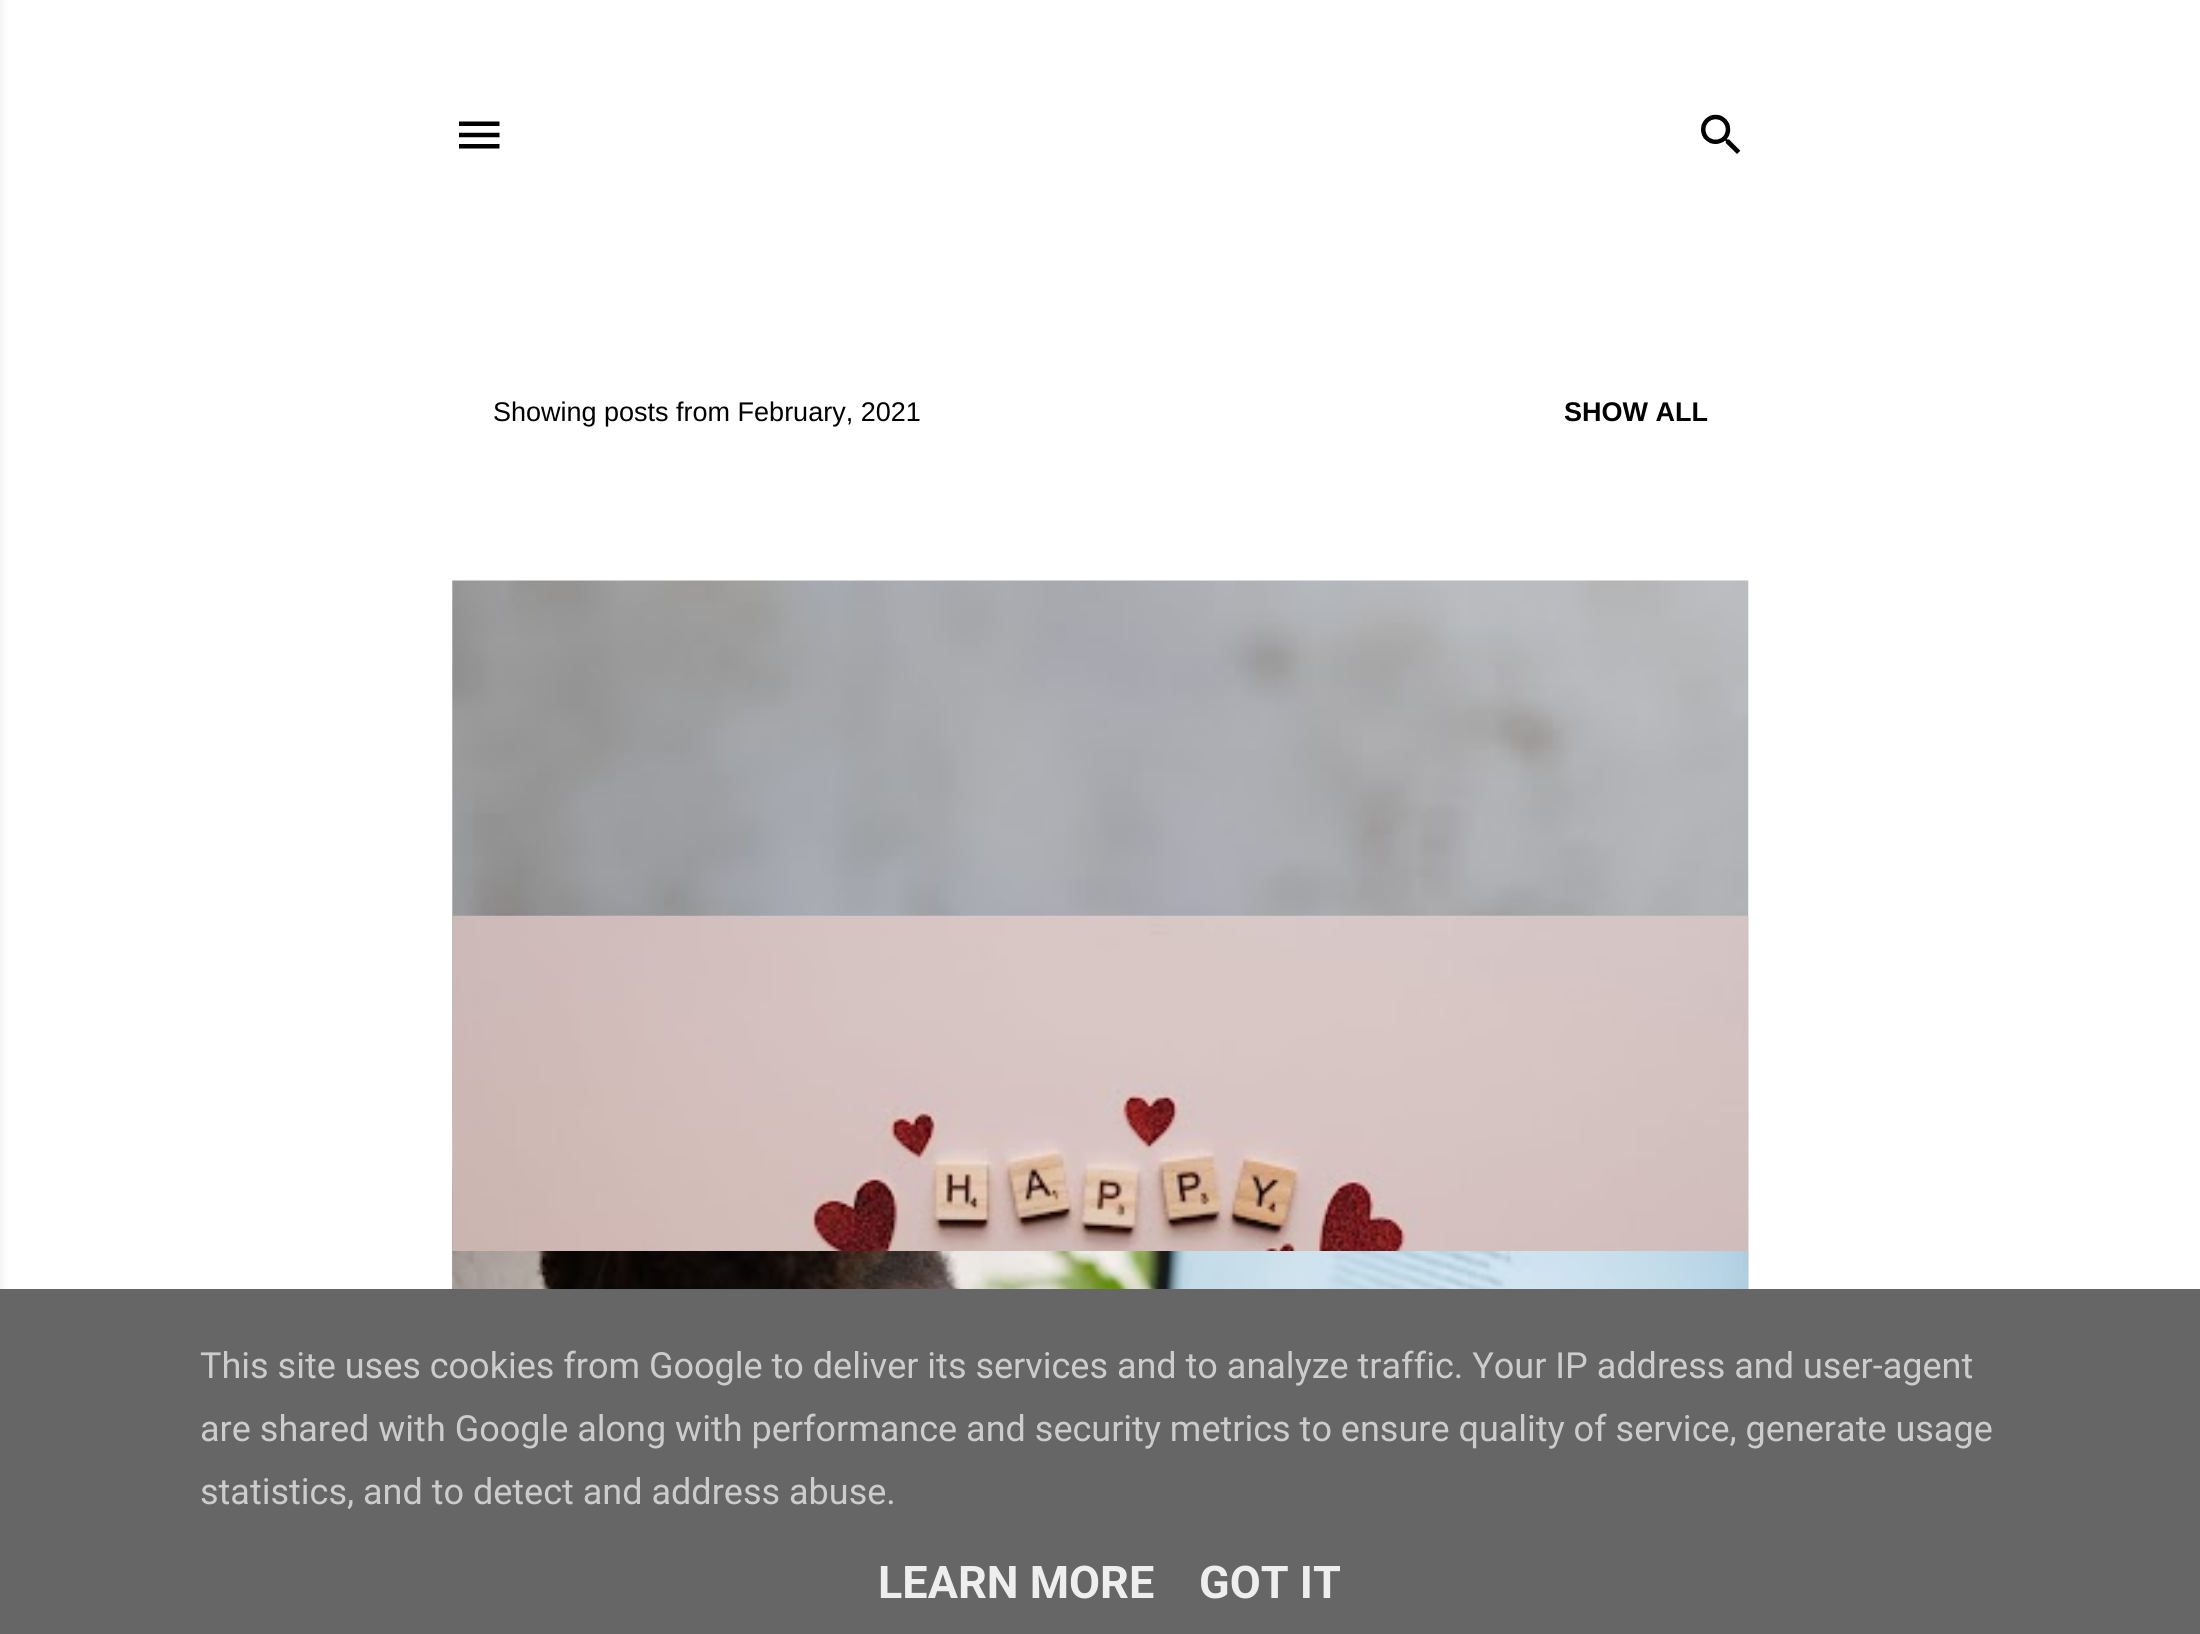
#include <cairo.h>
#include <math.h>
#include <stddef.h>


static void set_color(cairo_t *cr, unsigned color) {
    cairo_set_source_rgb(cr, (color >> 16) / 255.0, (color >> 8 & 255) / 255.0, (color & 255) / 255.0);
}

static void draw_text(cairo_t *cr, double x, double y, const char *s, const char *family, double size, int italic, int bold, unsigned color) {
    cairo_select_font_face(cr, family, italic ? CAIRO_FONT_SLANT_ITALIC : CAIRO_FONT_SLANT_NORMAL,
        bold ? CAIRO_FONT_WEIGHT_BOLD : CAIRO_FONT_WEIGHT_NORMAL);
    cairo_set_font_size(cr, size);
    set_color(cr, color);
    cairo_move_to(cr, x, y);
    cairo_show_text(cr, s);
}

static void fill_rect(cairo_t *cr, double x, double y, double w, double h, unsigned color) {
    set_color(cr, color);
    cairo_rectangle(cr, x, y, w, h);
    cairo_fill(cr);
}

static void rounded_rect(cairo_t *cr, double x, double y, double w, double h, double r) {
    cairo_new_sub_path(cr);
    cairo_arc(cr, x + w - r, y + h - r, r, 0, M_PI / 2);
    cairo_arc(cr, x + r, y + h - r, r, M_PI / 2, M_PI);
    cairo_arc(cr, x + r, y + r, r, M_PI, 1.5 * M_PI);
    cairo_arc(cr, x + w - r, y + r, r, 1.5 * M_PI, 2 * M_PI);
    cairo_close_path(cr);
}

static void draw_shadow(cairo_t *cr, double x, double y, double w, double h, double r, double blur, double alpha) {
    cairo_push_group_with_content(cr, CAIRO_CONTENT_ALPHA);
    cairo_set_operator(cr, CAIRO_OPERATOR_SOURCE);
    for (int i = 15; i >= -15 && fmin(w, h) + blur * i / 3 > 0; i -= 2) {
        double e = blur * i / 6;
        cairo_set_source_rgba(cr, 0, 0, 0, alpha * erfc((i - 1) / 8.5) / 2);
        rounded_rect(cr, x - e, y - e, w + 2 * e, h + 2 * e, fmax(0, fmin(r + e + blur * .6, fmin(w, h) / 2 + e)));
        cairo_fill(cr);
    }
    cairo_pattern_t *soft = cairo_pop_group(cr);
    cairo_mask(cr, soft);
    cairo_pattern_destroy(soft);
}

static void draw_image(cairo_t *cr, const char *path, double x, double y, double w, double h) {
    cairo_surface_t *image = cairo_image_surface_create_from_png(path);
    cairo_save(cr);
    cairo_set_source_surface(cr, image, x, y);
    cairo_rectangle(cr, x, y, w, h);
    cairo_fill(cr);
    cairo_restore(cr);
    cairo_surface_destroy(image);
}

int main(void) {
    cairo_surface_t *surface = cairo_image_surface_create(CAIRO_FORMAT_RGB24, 2200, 1634);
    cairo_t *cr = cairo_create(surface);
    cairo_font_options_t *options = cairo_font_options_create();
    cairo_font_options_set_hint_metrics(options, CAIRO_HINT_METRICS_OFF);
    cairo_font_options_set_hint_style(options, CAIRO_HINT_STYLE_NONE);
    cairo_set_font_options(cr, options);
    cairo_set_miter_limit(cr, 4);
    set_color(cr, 0xFFFFFF);
    cairo_paint(cr);
    set_color(cr, 0x5F5F5F);
    draw_shadow(cr, -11, 0, 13, 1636, 0, 3.5, 0.1);
    draw_image(cr, "assets/img1.png", 459, 121, 41, 28);
    draw_image(cr, "assets/img2.png", 1701, 114, 40, 40);
    draw_text(cr, 493, 421, "Showing posts from February, 2021", "Liberation Sans", 27, 0, 0, 0x000000);
    draw_text(cr, 1564, 421, "SHOW ALL", "Liberation Sans", 27, 0, 1, 0x000000);
    draw_image(cr, "assets/img3.png", 452, 580, 1297, 709);
    draw_image(cr, "assets/img4.png", 452, 915, 1297, 374);
    draw_image(cr, "assets/img5.png", 452, 1251, 1297, 38);
    fill_rect(cr, 0, 1289, 2200, 345, 0x666666);
    draw_text(cr, 200, 1378, "This site uses cookies from Google to deliver its services and to analyze traffic. Your IP address and user-agent", "Roboto", 36, 0, 0, 0xCCCCCC);
    draw_text(cr, 200, 1441, "are shared with Google along with performance and security metrics to ensure quality of service, generate usage", "Roboto", 36, 0, 0, 0xCCCCCC);
    draw_text(cr, 200, 1504, "statistics, and to detect and address abuse.", "Roboto", 36, 0, 0, 0xCCCCCC);
    draw_text(cr, 878, 1598, "LEARN MORE", "Roboto", 45, 0, 1, 0xEEEEEE);
    draw_text(cr, 1199, 1598, "GOT IT", "Roboto", 45, 0, 1, 0xEEEEEE);
    cairo_surface_write_to_png(surface, "output.png");
    cairo_font_options_destroy(options);
    cairo_destroy(cr);
    cairo_surface_destroy(surface);
    return 0;
}
